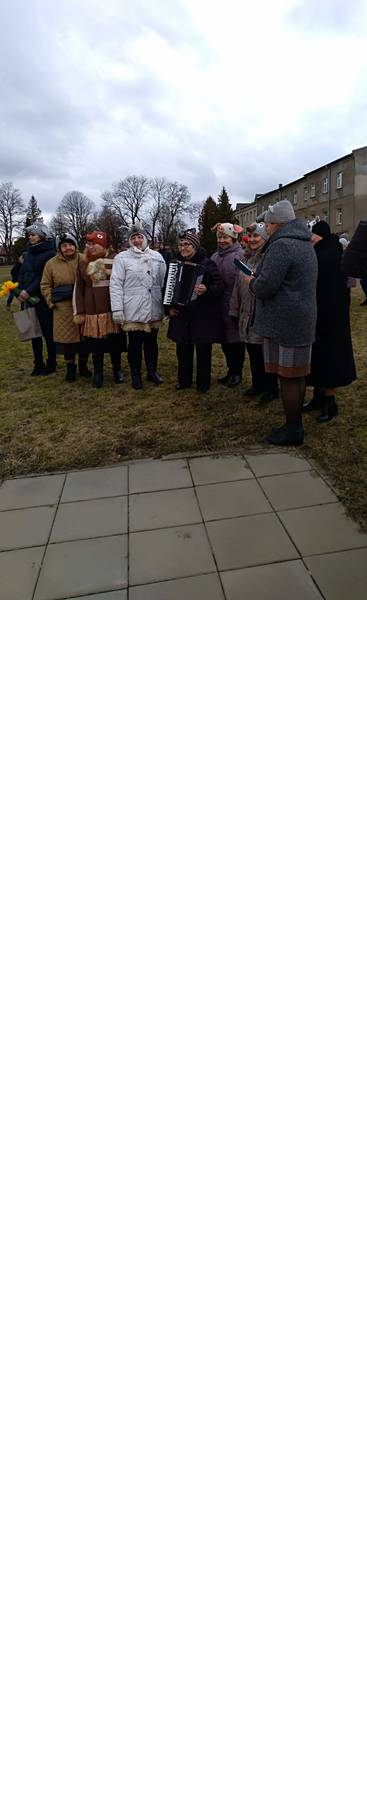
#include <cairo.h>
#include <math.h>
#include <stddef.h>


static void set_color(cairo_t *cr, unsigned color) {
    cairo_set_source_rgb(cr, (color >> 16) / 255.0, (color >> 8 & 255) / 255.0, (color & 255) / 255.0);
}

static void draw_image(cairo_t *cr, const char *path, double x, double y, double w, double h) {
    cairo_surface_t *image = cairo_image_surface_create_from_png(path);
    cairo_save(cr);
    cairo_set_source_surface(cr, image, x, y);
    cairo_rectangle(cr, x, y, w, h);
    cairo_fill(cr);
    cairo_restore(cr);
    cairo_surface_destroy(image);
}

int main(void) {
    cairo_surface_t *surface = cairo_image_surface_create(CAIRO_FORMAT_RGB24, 367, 1809);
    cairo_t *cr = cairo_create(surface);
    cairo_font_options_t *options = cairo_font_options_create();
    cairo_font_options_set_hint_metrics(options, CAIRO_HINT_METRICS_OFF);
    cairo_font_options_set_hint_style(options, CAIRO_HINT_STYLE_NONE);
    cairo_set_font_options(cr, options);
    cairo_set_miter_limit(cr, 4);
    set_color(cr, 0xFFFFFF);
    cairo_paint(cr);
    draw_image(cr, "assets/img1.png", 0, 0, 367, 600);
    cairo_surface_write_to_png(surface, "output.png");
    cairo_font_options_destroy(options);
    cairo_destroy(cr);
    cairo_surface_destroy(surface);
    return 0;
}
